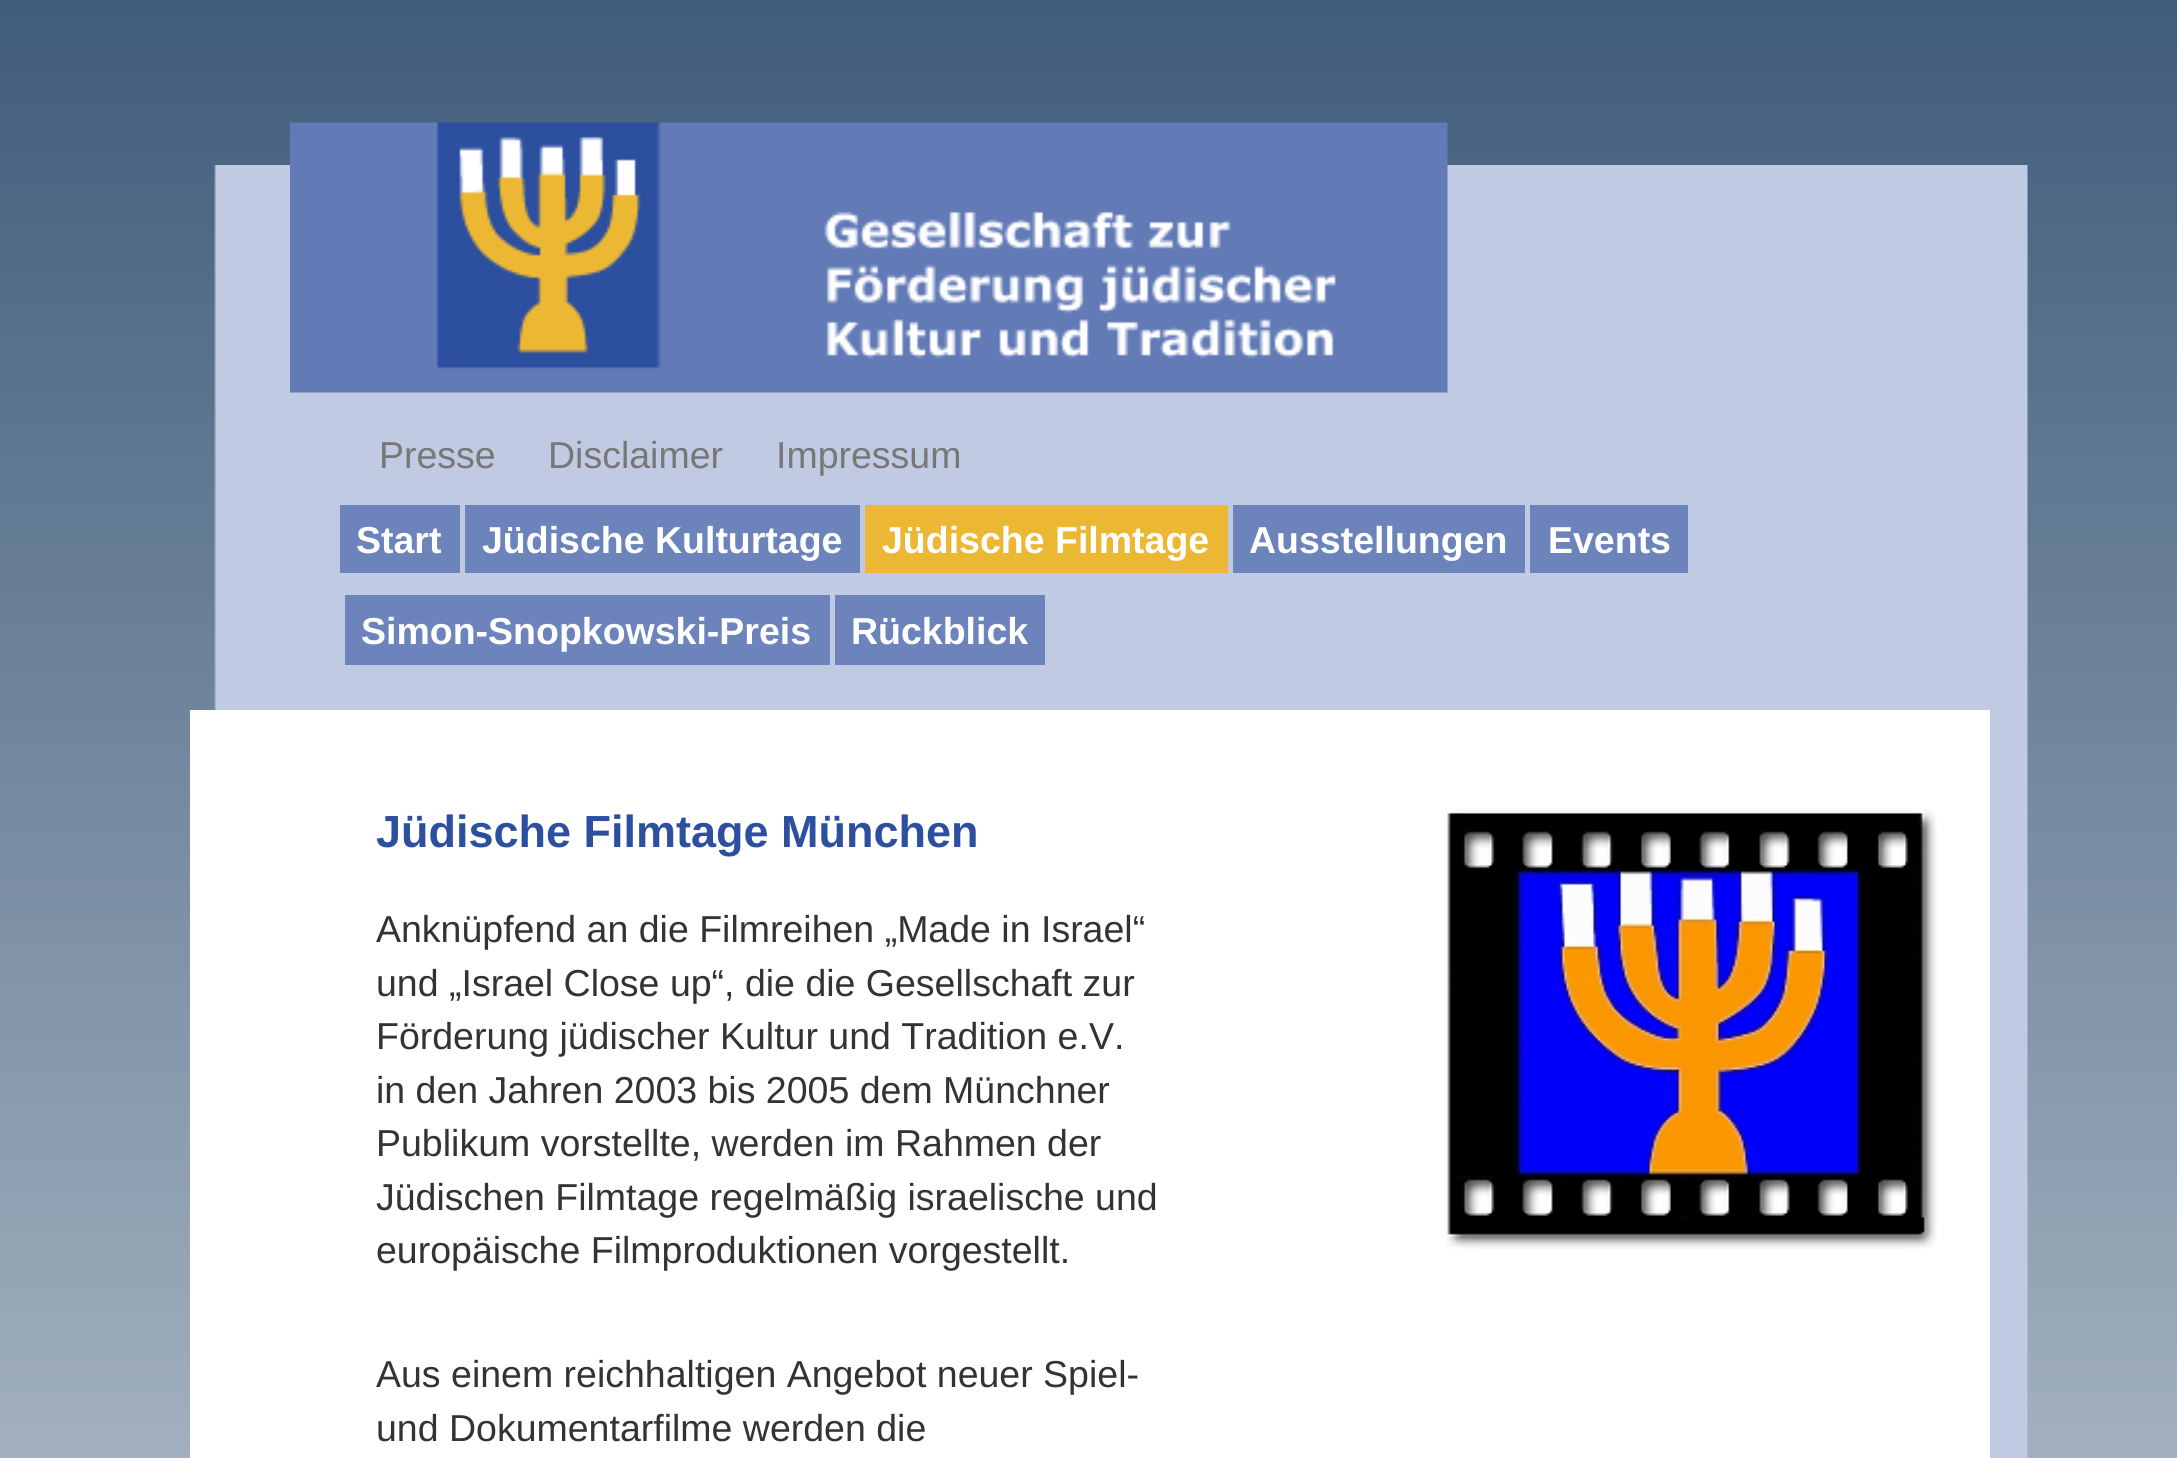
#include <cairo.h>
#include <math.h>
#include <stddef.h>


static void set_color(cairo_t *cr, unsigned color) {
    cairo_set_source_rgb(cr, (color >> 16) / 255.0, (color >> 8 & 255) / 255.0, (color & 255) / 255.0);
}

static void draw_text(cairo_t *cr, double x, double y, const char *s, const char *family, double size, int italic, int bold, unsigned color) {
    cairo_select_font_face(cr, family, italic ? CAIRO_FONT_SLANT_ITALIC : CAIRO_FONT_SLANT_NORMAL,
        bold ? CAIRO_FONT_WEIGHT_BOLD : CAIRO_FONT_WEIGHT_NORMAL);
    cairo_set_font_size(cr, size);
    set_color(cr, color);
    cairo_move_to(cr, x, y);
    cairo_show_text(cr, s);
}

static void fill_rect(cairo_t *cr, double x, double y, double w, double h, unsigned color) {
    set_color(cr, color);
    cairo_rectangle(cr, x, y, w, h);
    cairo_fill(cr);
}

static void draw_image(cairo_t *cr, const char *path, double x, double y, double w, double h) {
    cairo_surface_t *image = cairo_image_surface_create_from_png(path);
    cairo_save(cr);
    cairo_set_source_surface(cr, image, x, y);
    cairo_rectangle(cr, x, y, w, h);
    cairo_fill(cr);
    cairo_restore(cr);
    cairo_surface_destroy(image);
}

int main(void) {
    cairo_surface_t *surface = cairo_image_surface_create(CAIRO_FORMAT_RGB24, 2177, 1458);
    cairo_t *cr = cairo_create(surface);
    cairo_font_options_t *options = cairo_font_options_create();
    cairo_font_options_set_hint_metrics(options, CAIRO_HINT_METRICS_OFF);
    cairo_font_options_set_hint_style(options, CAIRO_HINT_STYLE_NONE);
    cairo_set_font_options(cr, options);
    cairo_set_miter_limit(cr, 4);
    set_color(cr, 0xFFFFFF);
    cairo_paint(cr);
    draw_image(cr, "assets/img1.png", 0, 0, 2177, 1458);
    draw_image(cr, "assets/img2.png", 214, 165, 1814, 1293);
    draw_image(cr, "assets/img3.png", 290, 122, 1158, 271);
    draw_text(cr, 379, 468, "Presse", "Liberation Sans", 37.5, 0, 0, 0x777777);
    draw_text(cr, 548, 468, "Disclaimer", "Liberation Sans", 37.5, 0, 0, 0x777777);
    draw_text(cr, 776, 468, "Impressum", "Liberation Sans", 37.5, 0, 0, 0x777777);
    fill_rect(cr, 340, 505, 120, 68, 0x6C84BB);
    draw_text(cr, 356, 553, "Start", "Liberation Sans", 37.5, 0, 1, 0xFFFFFF);
    fill_rect(cr, 465, 505, 395, 68, 0x6C84BB);
    draw_text(cr, 482, 553, "Jüdische Kulturtage", "Liberation Sans", 37.5, 0, 1, 0xFFFFFF);
    fill_rect(cr, 865, 505, 363, 68, 0xECB834);
    draw_text(cr, 882, 553, "Jüdische Filmtage", "Liberation Sans", 37.5, 0, 1, 0xFFFFFF);
    fill_rect(cr, 1233, 505, 292, 68, 0x6C84BB);
    draw_text(cr, 1249, 553, "Ausstellungen", "Liberation Sans", 37.5, 0, 1, 0xFFFFFF);
    fill_rect(cr, 1530, 505, 158, 68, 0x6C84BB);
    draw_text(cr, 1548, 553, "Events", "Liberation Sans", 37.5, 0, 1, 0xFFFFFF);
    fill_rect(cr, 345, 595, 485, 70, 0x6C84BB);
    draw_text(cr, 361, 644, "Simon-Snopkowski-Preis", "Liberation Sans", 37.5, 0, 1, 0xFFFFFF);
    fill_rect(cr, 835, 595, 210, 70, 0x6C84BB);
    draw_text(cr, 851, 644, "Rückblick", "Liberation Sans", 37.5, 0, 1, 0xFFFFFF);
    fill_rect(cr, 190, 710, 1800, 748, 0xFFFFFF);
    draw_text(cr, 376, 847, "Jüdische Filmtage München", "Liberation Sans", 45, 0, 1, 0x2D4F9F);
    draw_text(cr, 376, 942, "Anknüpfend an die Filmreihen „Made in Israel“", "Liberation Sans", 37.5, 0, 0, 0x333333);
    draw_text(cr, 376, 996, "und „Israel Close up“, die die Gesellschaft zur", "Liberation Sans", 37.5, 0, 0, 0x333333);
    draw_text(cr, 376, 1049, "Förderung jüdischer Kultur und Tradition e.V.", "Liberation Sans", 37.5, 0, 0, 0x333333);
    draw_text(cr, 376, 1103, "in den Jahren 2003 bis 2005 dem Münchner", "Liberation Sans", 37.5, 0, 0, 0x333333);
    draw_text(cr, 376, 1156, "Publikum vorstellte, werden im Rahmen der", "Liberation Sans", 37.5, 0, 0, 0x333333);
    draw_text(cr, 376, 1210, "Jüdischen Filmtage regelmäßig israelische und", "Liberation Sans", 37.5, 0, 0, 0x333333);
    draw_text(cr, 376, 1263, "europäische Filmproduktionen vorgestellt.", "Liberation Sans", 37.5, 0, 0, 0x333333);
    draw_text(cr, 376, 1387, "Aus einem reichhaltigen Angebot neuer Spiel-", "Liberation Sans", 37.5, 0, 0, 0x333333);
    draw_text(cr, 376, 1441, "und Dokumentarfilme werden die", "Liberation Sans", 37.5, 0, 0, 0x333333);
    draw_image(cr, "assets/img4.png", 1444, 808, 493, 441);
    cairo_surface_write_to_png(surface, "output.png");
    cairo_font_options_destroy(options);
    cairo_destroy(cr);
    cairo_surface_destroy(surface);
    return 0;
}
